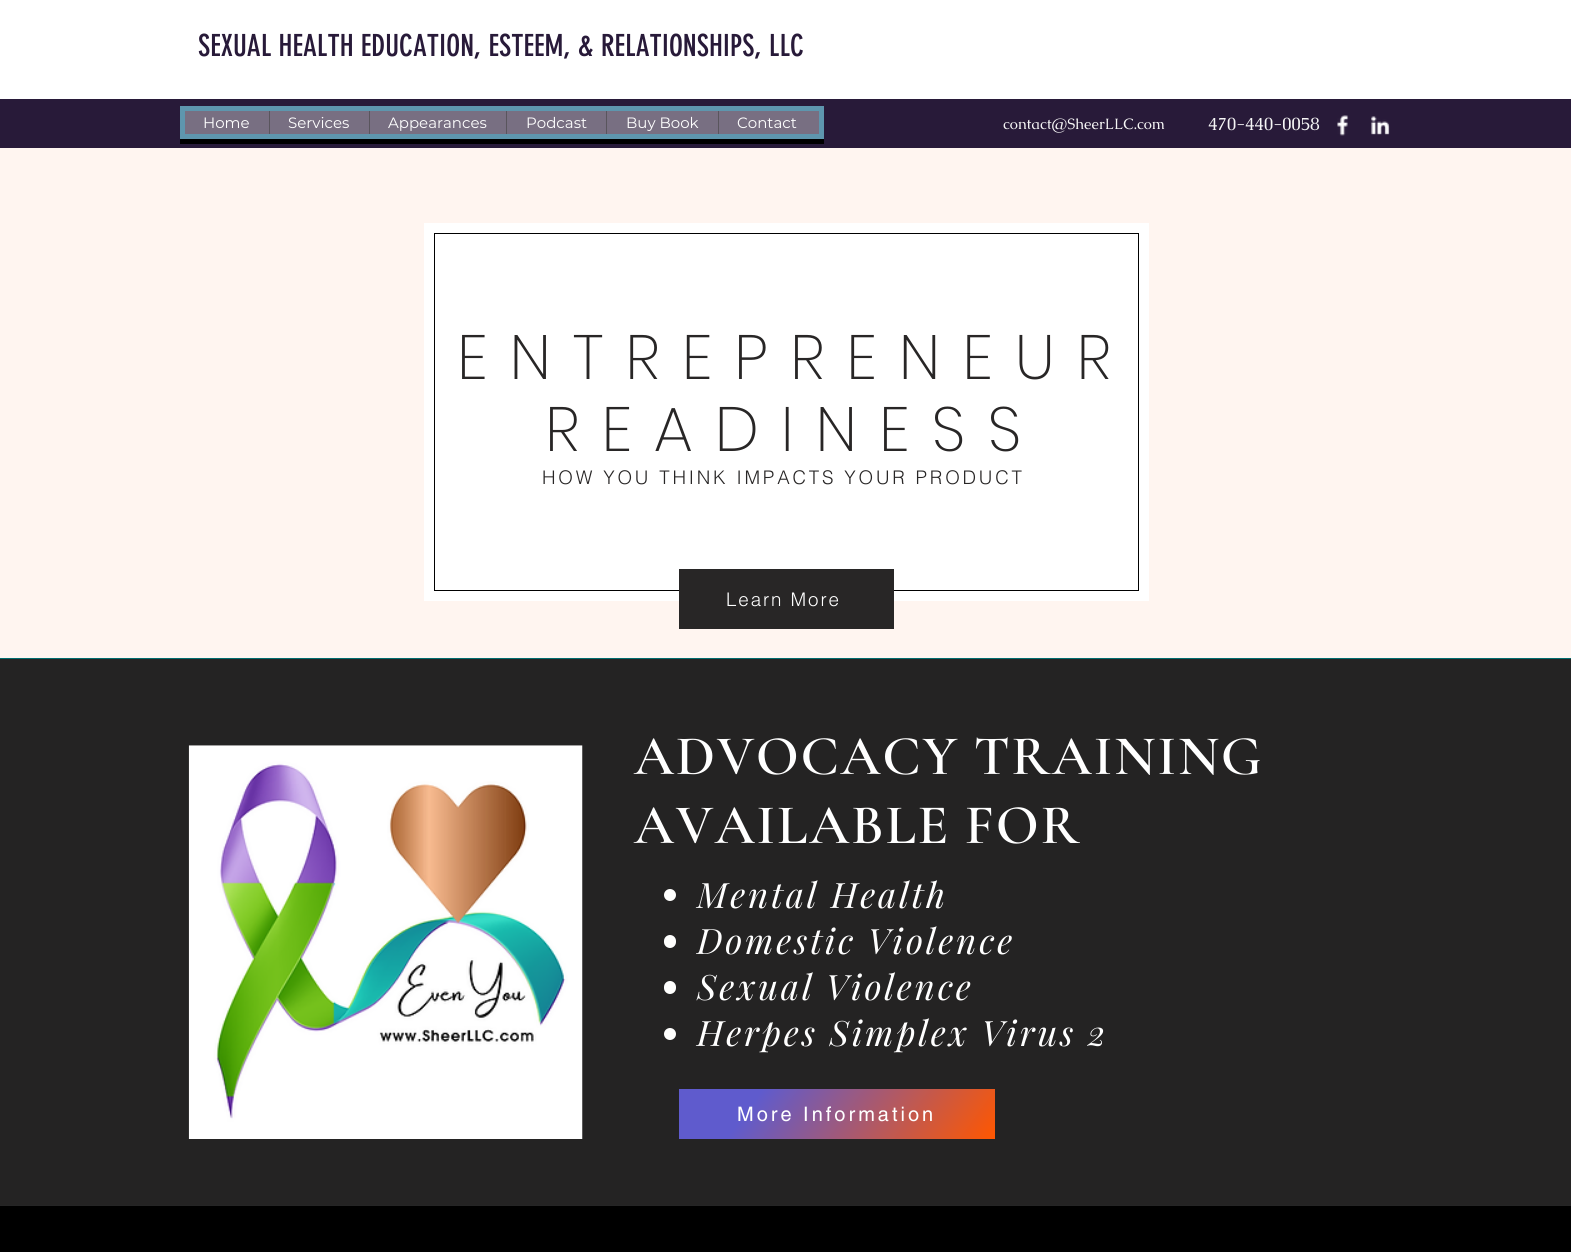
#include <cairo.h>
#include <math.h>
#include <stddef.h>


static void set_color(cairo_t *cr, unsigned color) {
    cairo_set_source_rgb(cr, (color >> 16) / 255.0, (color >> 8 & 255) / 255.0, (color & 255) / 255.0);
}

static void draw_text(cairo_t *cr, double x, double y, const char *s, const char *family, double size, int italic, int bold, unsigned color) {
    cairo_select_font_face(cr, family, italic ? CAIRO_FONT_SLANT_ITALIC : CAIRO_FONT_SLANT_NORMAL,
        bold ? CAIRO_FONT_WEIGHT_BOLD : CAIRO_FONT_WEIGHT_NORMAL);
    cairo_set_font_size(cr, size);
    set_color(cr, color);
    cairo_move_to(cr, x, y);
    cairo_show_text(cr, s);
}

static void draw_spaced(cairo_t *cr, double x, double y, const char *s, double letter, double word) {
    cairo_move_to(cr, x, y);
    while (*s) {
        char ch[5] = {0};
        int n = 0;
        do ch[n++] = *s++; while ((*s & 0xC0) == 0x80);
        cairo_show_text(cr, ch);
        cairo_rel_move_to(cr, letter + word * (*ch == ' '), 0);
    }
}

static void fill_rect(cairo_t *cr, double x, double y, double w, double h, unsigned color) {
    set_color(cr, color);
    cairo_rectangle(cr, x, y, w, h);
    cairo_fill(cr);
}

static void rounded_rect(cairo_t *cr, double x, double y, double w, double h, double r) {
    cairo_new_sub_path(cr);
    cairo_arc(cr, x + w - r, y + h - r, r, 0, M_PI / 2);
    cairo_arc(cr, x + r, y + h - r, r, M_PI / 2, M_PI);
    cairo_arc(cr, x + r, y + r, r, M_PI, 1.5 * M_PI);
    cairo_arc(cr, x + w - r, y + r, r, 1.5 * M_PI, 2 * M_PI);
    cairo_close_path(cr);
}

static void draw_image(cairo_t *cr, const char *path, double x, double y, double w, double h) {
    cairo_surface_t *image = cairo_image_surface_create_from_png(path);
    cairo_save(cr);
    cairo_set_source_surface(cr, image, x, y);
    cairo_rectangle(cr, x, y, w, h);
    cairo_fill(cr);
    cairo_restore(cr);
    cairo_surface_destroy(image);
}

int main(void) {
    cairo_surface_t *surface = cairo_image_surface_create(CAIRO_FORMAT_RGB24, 1571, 1252);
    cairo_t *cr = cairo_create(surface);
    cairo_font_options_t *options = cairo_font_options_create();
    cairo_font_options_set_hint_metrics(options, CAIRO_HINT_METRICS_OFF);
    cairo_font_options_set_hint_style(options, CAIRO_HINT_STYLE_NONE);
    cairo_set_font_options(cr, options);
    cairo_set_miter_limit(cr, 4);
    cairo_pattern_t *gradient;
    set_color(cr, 0x006C6D);
    cairo_paint(cr);
    fill_rect(cr, 0, 0, 1571, 99, 0xFFFFFF);
    draw_text(cr, 198, 56, "SEXUAL HEALTH EDUCATION, ESTEEM, & RELATIONSHIPS, LLC", "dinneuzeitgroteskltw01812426", 30, 0, 0, 0x281A39);
    fill_rect(cr, 0, 99, 1571, 49, 0x281A39);
    set_color(cr, 0x000000);
    cairo_new_path(cr);
    cairo_move_to(cr, 180, 139);
    cairo_line_to(cr, 180, 144);
    cairo_line_to(cr, 824, 144);
    cairo_line_to(cr, 824, 111);
    cairo_line_to(cr, 824, 139);
    cairo_close_path(cr);
    cairo_fill(cr);
    set_color(cr, 0x786F82);
    cairo_rectangle(cr, 182.5, 108.5, 639, 28);
    cairo_fill_preserve(cr);
    set_color(cr, 0x5E96AE);
    cairo_set_line_width(cr, 5);
    cairo_stroke(cr);
    draw_text(cr, 203, 128, "Home", "Montserrat", 15, 0, 0, 0xFFFFFF);
    fill_rect(cr, 269, 111, 1, 23, 0x59555D);
    draw_text(cr, 288, 128, "Services", "Montserrat", 15, 0, 0, 0xFFFFFF);
    fill_rect(cr, 369, 111, 1, 23, 0x59555D);
    draw_text(cr, 388, 128, "Appearances", "Montserrat", 15, 0, 0, 0xFFFFFF);
    fill_rect(cr, 506, 111, 1, 23, 0x59555D);
    draw_text(cr, 526, 128, "Podcast", "Montserrat", 15, 0, 0, 0xFFFFFF);
    fill_rect(cr, 606, 111, 1, 23, 0x59555D);
    draw_text(cr, 626, 128, "Buy Book", "Montserrat", 15, 0, 0, 0xFFFFFF);
    fill_rect(cr, 718, 111, 1, 23, 0x59555D);
    draw_text(cr, 737, 128, "Contact", "Montserrat", 15, 0, 0, 0xFFFFFF);
    draw_text(cr, 1003, 129, "contact@SheerLLC.com", "Caudex", 15, 0, 0, 0xF6F6F6);
    draw_text(cr, 1208, 130, "470-440-0058", "Caudex", 17.5, 0, 0, 0xF6F6F6);
    draw_image(cr, "assets/img1.png", 1337, 115, 12, 21);
    draw_image(cr, "assets/img2.png", 1371, 116, 19, 19);
    fill_rect(cr, 0, 148, 1571, 510, 0xFFF5F0);
    fill_rect(cr, 424, 223, 725, 378, 0xFFFFFF);
    cairo_rectangle(cr, 434.5, 233.5, 704, 357);
    set_color(cr, 0x000000);
    cairo_set_line_width(cr, 1);
    cairo_stroke(cr);
    cairo_select_font_face(cr, "Poppins ExtraLight", CAIRO_FONT_SLANT_NORMAL, CAIRO_FONT_WEIGHT_NORMAL);
    cairo_set_font_size(cr, 62.5);
    set_color(cr, 0x282626);
    draw_spaced(cr, 457, 379, "ENTREPRENEUR", 21.9, 0);
    draw_spaced(cr, 545, 451, "READINESS", 21.9, 0);
    cairo_select_font_face(cr, "helvetica Light", CAIRO_FONT_SLANT_NORMAL, CAIRO_FONT_WEIGHT_NORMAL);
    cairo_set_font_size(cr, 18.75);
    draw_spaced(cr, 542, 484, "HOW YOU THINK IMPACTS YOUR PRODUCT", 2.8, 0);
    fill_rect(cr, 679, 569, 215, 60, 0x282626);
    set_color(cr, 0xFFFFFF);
    draw_spaced(cr, 726, 606, "Learn More", 1.9, 0);
    fill_rect(cr, 0, 659, 1571, 546, 0x242323);
    draw_image(cr, "assets/img3.png", 188, 745, 395, 394);
    cairo_select_font_face(cr, "Cormorant Garamond SemiBold", CAIRO_FONT_SLANT_NORMAL, CAIRO_FONT_WEIGHT_NORMAL);
    cairo_set_font_size(cr, 56.25);
    set_color(cr, 0xFFFFFF);
    draw_spaced(cr, 634, 774, "ADVOCACY TRAINING", 1.7, 0);
    draw_spaced(cr, 634, 843, "AVAILABLE FOR", 1.7, 0);
    set_color(cr, 0xFFFFFE);
    cairo_new_path(cr);
    cairo_arc(cr, 670, 895, 6, 0, 2 * M_PI);
    cairo_fill(cr);
    cairo_select_font_face(cr, "Playfair Display", CAIRO_FONT_SLANT_ITALIC, CAIRO_FONT_WEIGHT_NORMAL);
    cairo_set_font_size(cr, 35);
    set_color(cr, 0xFFFFFF);
    draw_spaced(cr, 697, 908, "Mental Health", 2.8, 0);
    set_color(cr, 0xFFFFFE);
    rounded_rect(cr, 664, 935, 12, 13, 6);
    cairo_fill(cr);
    set_color(cr, 0xFFFFFF);
    draw_spaced(cr, 697, 954, "Domestic Violence", 2.8, 0);
    set_color(cr, 0xFFFFFE);
    rounded_rect(cr, 664, 981, 12, 13, 6);
    cairo_fill(cr);
    set_color(cr, 0xFFFFFF);
    draw_spaced(cr, 697, 1000, "Sexual Violence", 2.8, 0);
    set_color(cr, 0xFFFFFE);
    cairo_new_path(cr);
    cairo_arc(cr, 670, 1034, 6, 0, 2 * M_PI);
    cairo_fill(cr);
    set_color(cr, 0xFFFFFF);
    draw_spaced(cr, 697, 1046, "Herpes Simplex Virus 2", 2.8, 0);
    gradient = cairo_pattern_create_linear(721, 1030, 952, 1198);
    cairo_pattern_add_color_stop_rgba(gradient, 0.24, 0.373, 0.357, 0.804, 1);
    cairo_pattern_add_color_stop_rgba(gradient, 1, 1, 0.341, 0, 1);
    cairo_set_source(cr, gradient);
    cairo_pattern_destroy(gradient);
    cairo_rectangle(cr, 679, 1089, 316, 50);
    cairo_fill(cr);
    cairo_select_font_face(cr, "helvetica", CAIRO_FONT_SLANT_NORMAL, CAIRO_FONT_WEIGHT_NORMAL);
    cairo_set_font_size(cr, 20);
    set_color(cr, 0xFFFFFF);
    draw_spaced(cr, 737, 1121, "More Information", 3, 0);
    fill_rect(cr, 0, 1206, 1571, 46, 0x000000);
    fill_rect(cr, 0, 1205, 1571, 1, 0x252525);
    cairo_surface_write_to_png(surface, "output.png");
    cairo_font_options_destroy(options);
    cairo_destroy(cr);
    cairo_surface_destroy(surface);
    return 0;
}
